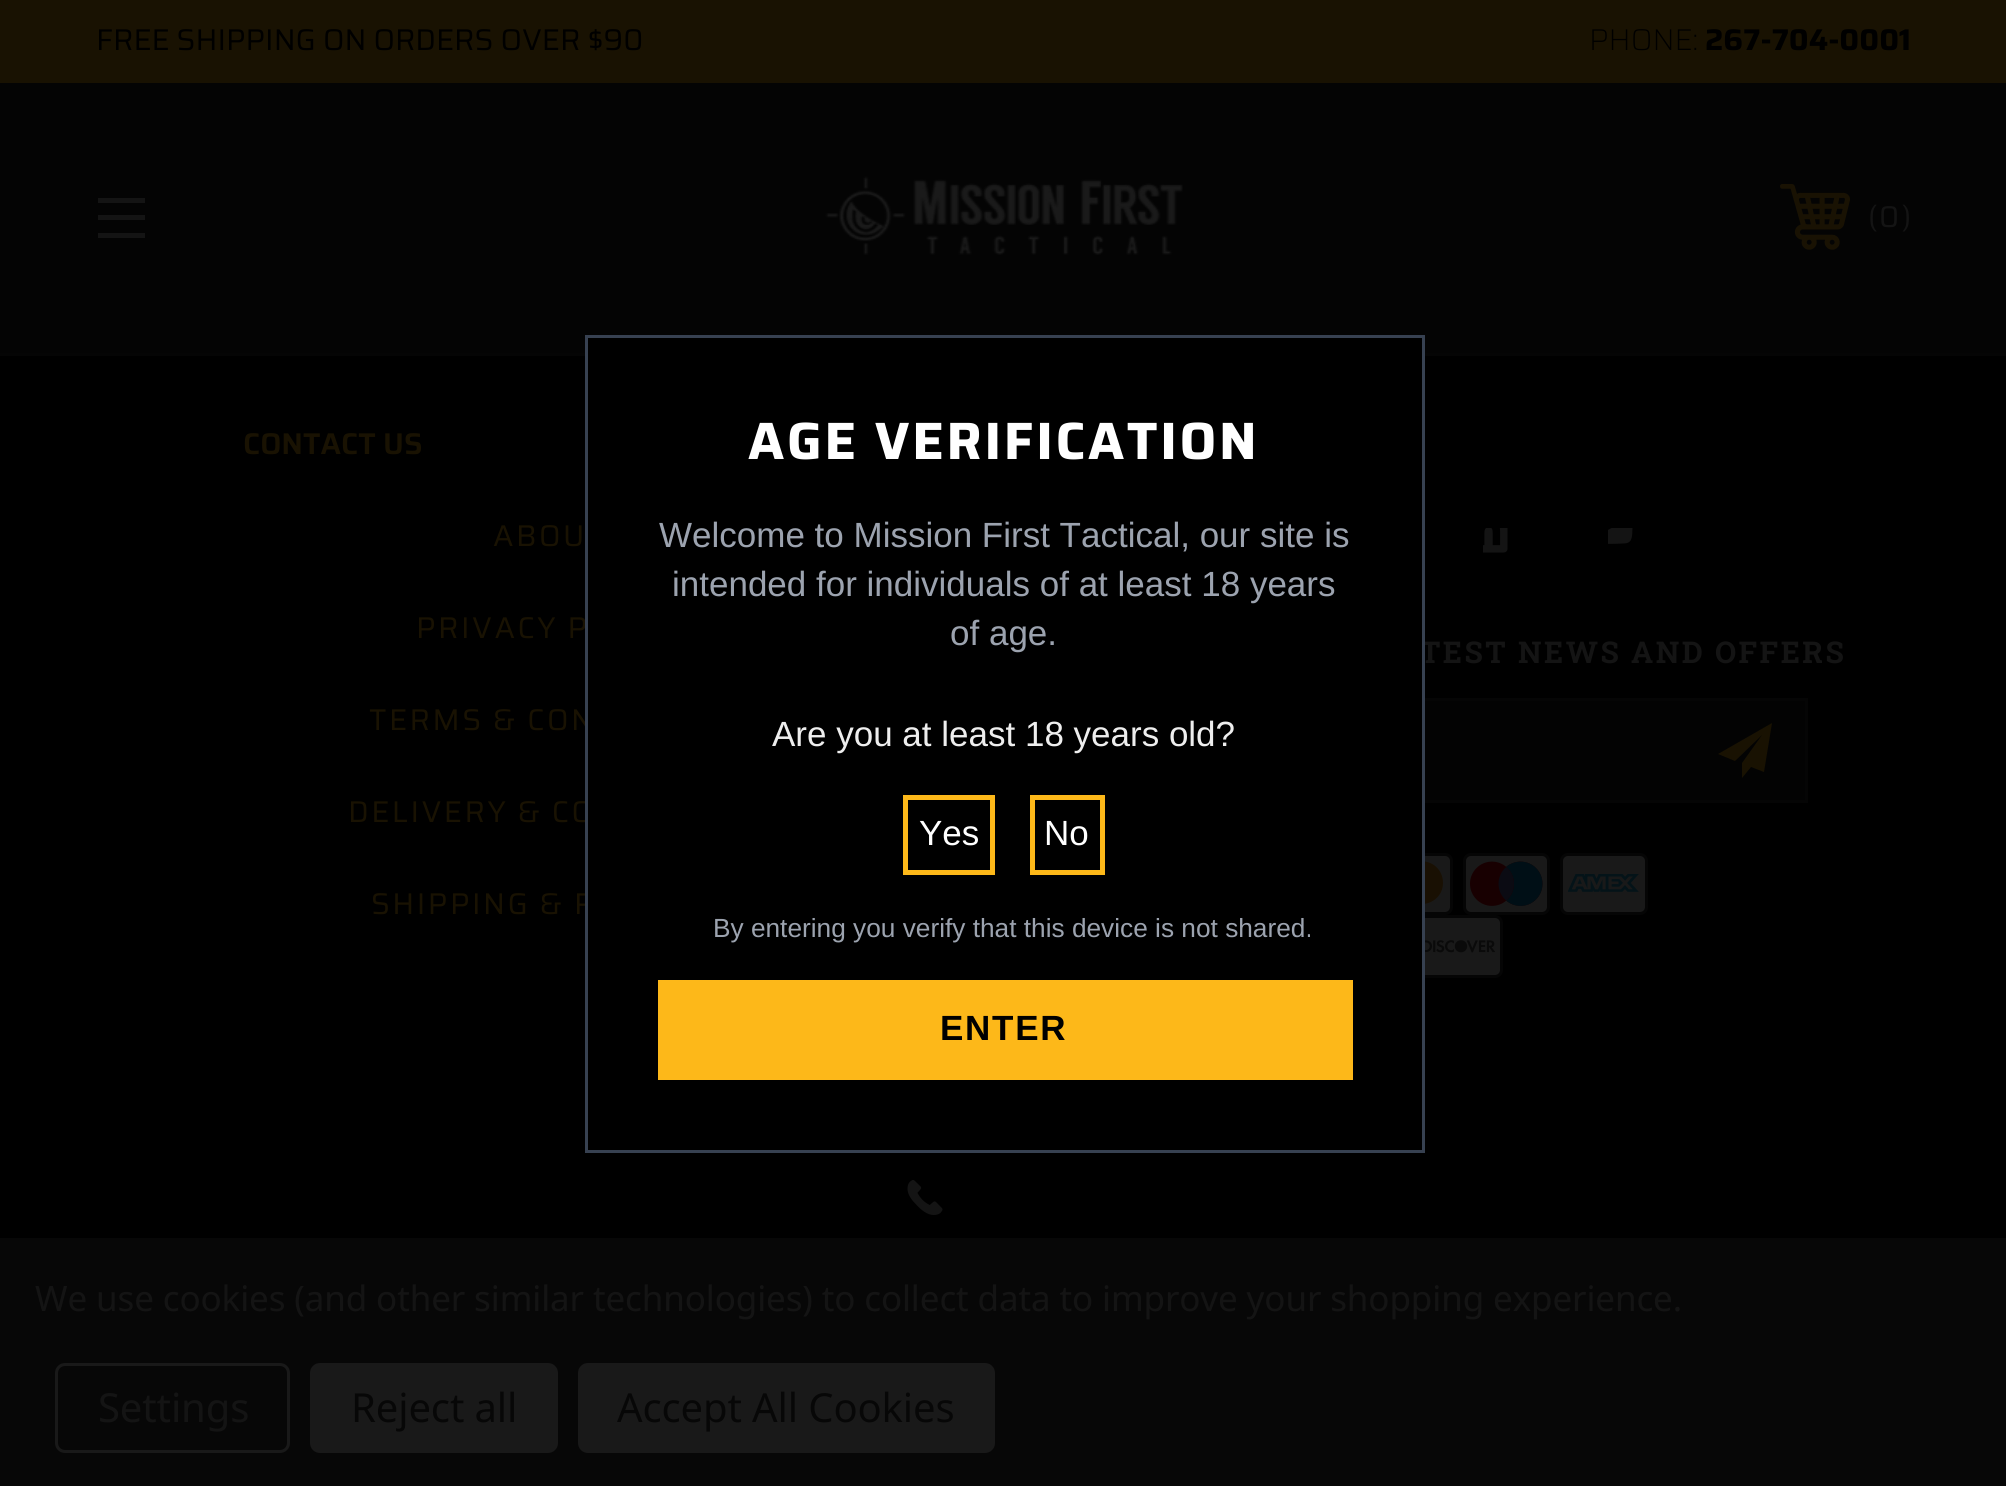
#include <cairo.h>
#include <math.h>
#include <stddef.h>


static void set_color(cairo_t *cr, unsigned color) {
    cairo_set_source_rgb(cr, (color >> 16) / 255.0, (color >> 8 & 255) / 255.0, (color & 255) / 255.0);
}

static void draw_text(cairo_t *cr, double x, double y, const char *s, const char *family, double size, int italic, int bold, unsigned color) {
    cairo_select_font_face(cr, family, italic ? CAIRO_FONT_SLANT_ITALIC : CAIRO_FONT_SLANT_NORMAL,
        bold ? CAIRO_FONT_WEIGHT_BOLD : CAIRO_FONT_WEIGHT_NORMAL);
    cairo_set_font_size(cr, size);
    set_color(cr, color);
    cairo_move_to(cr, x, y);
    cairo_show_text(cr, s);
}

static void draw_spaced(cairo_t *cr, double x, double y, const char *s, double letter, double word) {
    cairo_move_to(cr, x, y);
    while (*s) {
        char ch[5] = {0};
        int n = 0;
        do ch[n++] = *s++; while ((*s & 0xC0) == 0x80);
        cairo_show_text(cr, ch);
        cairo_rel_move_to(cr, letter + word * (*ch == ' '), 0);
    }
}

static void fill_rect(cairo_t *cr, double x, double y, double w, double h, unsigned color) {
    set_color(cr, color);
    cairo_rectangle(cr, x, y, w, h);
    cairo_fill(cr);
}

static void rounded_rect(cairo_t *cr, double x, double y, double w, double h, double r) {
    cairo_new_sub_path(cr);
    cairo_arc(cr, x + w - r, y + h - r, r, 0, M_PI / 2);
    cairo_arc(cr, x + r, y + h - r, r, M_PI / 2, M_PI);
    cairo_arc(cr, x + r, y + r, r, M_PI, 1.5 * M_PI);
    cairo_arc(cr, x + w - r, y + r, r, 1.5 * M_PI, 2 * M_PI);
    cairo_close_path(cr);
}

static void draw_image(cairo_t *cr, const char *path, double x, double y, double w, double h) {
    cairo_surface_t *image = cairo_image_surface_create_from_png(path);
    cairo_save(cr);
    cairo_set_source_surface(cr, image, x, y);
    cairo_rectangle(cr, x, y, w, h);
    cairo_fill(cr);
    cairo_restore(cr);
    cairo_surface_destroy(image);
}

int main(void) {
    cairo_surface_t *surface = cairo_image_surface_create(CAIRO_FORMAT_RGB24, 2006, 1486);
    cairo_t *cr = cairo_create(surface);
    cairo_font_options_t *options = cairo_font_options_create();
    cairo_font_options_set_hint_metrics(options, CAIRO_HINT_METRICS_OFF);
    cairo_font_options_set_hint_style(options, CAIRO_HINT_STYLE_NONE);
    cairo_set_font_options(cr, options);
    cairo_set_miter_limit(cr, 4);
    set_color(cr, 0x000000);
    cairo_paint(cr);
    fill_rect(cr, 0, 0, 2006, 83, 0x191202);
    draw_text(cr, 96, 50, "FREE SHIPPING ON ORDERS OVER $90", "Saira", 30, 0, 0, 0x000000);
    draw_text(cr, 1589, 50, "PHONE:", "Saira ExtraLight", 30, 0, 0, 0x000000);
    draw_text(cr, 1705, 50, "267-704-0001", "Saira", 30, 0, 1, 0x000000);
    fill_rect(cr, 0, 83, 2006, 270, 0x040404);
    fill_rect(cr, 0, 353, 2006, 3, 0x050505);
    fill_rect(cr, 98, 215, 47, 5, 0x141414);
    fill_rect(cr, 98, 198, 47, 5, 0x141414);
    fill_rect(cr, 98, 233, 47, 5, 0x141414);
    draw_image(cr, "assets/img1.png", 825, 176, 358, 79);
    draw_image(cr, "assets/img2.png", 1780, 184, 70, 66);
    draw_text(cr, 1868, 227, "(", "Saira", 30, 0, 0, 0x141414);
    draw_text(cr, 1879, 227, "0", "Saira", 30, 0, 0, 0x141414);
    draw_text(cr, 1902, 227, ")", "Saira", 30, 0, 0, 0x141414);
    set_color(cr, 0x191202);
    draw_spaced(cr, 369, 730, "TERMS & CON", 2.5, 0);
    draw_spaced(cr, 348, 822, "DELIVERY & CO", 2.5, 0);
    draw_spaced(cr, 371, 914, "SHIPPING & R", 2.5, 0);
    cairo_select_font_face(cr, "Roboto Slab", CAIRO_FONT_SLANT_NORMAL, CAIRO_FONT_WEIGHT_BOLD);
    set_color(cr, 0x141414);
    draw_spaced(cr, 1420, 663, "TEST NEWS AND OFFERS", 2.5, 0);
    fill_rect(cr, 1425, 701, 380, 99, 0x030303);
    cairo_rectangle(cr, 1109.5, 699.5, 697, 102);
    set_color(cr, 0x050505);
    cairo_set_line_width(cr, 3);
    cairo_stroke(cr);
    set_color(cr, 0x191919);
    rounded_rect(cr, 1366.5, 854.5, 85, 59, 6.5);
    cairo_fill_preserve(cr);
    set_color(cr, 0x050505);
    cairo_stroke(cr);
    set_color(cr, 0x191003);
    cairo_new_path(cr);
    cairo_move_to(cr, 1443, 883);
    cairo_curve_to(cr, 1443, 901, 1422, 910, 1408, 900);
    cairo_curve_to(cr, 1419, 891, 1419, 874, 1408, 866);
    cairo_curve_to(cr, 1422, 855, 1443, 864, 1443, 883);
    cairo_fill(cr);
    set_color(cr, 0x191919);
    rounded_rect(cr, 1416.5, 916.5, 85, 60, 6.5);
    cairo_fill_preserve(cr);
    set_color(cr, 0x050505);
    cairo_stroke(cr);
    fill_rect(cr, 588, 338, 834, 640, 0x000000);
    cairo_select_font_face(cr, "Saira", CAIRO_FONT_SLANT_NORMAL, CAIRO_FONT_WEIGHT_NORMAL);
    set_color(cr, 0x191202);
    draw_spaced(cr, 416, 638, "PRIVACY P", 2.5, 0);
    cairo_rectangle(cr, 586.5, 336.5, 837, 815);
    set_color(cr, 0x374151);
    cairo_stroke(cr);
    cairo_select_font_face(cr, "Saira", CAIRO_FONT_SLANT_NORMAL, CAIRO_FONT_WEIGHT_BOLD);
    cairo_set_font_size(cr, 52.5);
    set_color(cr, 0xFFFFFF);
    draw_spaced(cr, 748, 459, "AGE VERIFICATION", 2.6, 0);
    draw_text(cr, 659, 547, "Welcome to Mission First Tactical, our site is", "Liberation Sans", 35, 0, 0, 0x9CA3AF);
    draw_text(cr, 672, 596, "intended for individuals of at least 18 years", "Liberation Sans", 35, 0, 0, 0x9CA3AF);
    draw_text(cr, 950, 645, "of age.", "Liberation Sans", 35, 0, 0, 0x9CA3AF);
    draw_text(cr, 772, 746, "Are you at least 18 years old?", "Liberation Sans", 35, 0, 0, 0xEEEEEE);
    cairo_rectangle(cr, 905.5, 797.5, 87, 75);
    set_color(cr, 0xFDB819);
    cairo_set_line_width(cr, 5);
    cairo_stroke(cr);
    draw_text(cr, 919, 845, "Yes", "Liberation Sans", 35, 0, 0, 0xFFFFFF);
    cairo_rectangle(cr, 1032.5, 797.5, 70, 75);
    set_color(cr, 0xFDB819);
    cairo_stroke(cr);
    draw_text(cr, 1044, 845, "No", "Liberation Sans", 35, 0, 0, 0xFFFFFF);
    draw_text(cr, 713, 937, "By entering you verify that this device is not shared.", "Liberation Sans", 26.25, 0, 0, 0x9CA3AF);
    fill_rect(cr, 658, 980, 695, 100, 0xFDB819);
    cairo_select_font_face(cr, "Liberation Sans", CAIRO_FONT_SLANT_NORMAL, CAIRO_FONT_WEIGHT_BOLD);
    cairo_set_font_size(cr, 35);
    set_color(cr, 0x000000);
    draw_spaced(cr, 940, 1040, "ENTER", 1.75, 0);
    draw_text(cr, 243, 454, "CONTACT US", "Saira SemiBold", 30, 0, 0, 0x191202);
    cairo_select_font_face(cr, "Saira", CAIRO_FONT_SLANT_NORMAL, CAIRO_FONT_WEIGHT_NORMAL);
    draw_spaced(cr, 493, 546, "ABOU", 2.5, 0);
    draw_image(cr, "assets/img3.png", 1483, 528, 25, 25);
    draw_image(cr, "assets/img4.png", 1608, 528, 25, 16);
    cairo_new_path(cr);
    cairo_move_to(cr, 1772, 723);
    cairo_line_to(cr, 1718, 754);
    cairo_line_to(cr, 1735, 761);
    cairo_line_to(cr, 1762, 735);
    cairo_line_to(cr, 1742, 763);
    cairo_line_to(cr, 1742, 778);
    cairo_line_to(cr, 1751, 767);
    cairo_line_to(cr, 1764, 772);
    cairo_close_path(cr);
    cairo_fill(cr);
    set_color(cr, 0x191919);
    rounded_rect(cr, 1464.5, 854.5, 84, 59, 6.5);
    cairo_fill_preserve(cr);
    set_color(cr, 0x050505);
    cairo_set_line_width(cr, 3);
    cairo_stroke(cr);
    draw_image(cr, "assets/img5.png", 1470, 861, 73, 45);
    set_color(cr, 0x191919);
    rounded_rect(cr, 1561.5, 854.5, 85, 59, 6.5);
    cairo_fill_preserve(cr);
    set_color(cr, 0x050505);
    cairo_stroke(cr);
    draw_image(cr, "assets/img6.png", 1568, 874, 71, 18);
    draw_image(cr, "assets/img7.png", 1425, 940, 70, 13);
    draw_image(cr, "assets/img8.png", 907, 1180, 36, 35);
    fill_rect(cr, 0, 1238, 2006, 248, 0x070707);
    cairo_select_font_face(cr, "Noto Sans", CAIRO_FONT_SLANT_NORMAL, CAIRO_FONT_WEIGHT_NORMAL);
    cairo_set_font_size(cr, 35);
    set_color(cr, 0x141414);
    draw_spaced(cr, 35, 1311, "We use cookies (and other similar technologies) to collect data to improve your shopping experience.", -0.12, 0);
    rounded_rect(cr, 56.5, 1364.5, 232, 87, 8.5);
    set_color(cr, 0x191919);
    cairo_stroke(cr);
    cairo_set_font_size(cr, 40);
    set_color(cr, 0x141414);
    draw_spaced(cr, 98, 1422, "Settings", -0.12, 0);
    set_color(cr, 0x191919);
    rounded_rect(cr, 310, 1363, 248, 90, 10);
    cairo_fill(cr);
    set_color(cr, 0x070707);
    draw_spaced(cr, 351, 1422, "Reject all", -0.12, 0);
    set_color(cr, 0x191919);
    rounded_rect(cr, 578, 1363, 417, 90, 10);
    cairo_fill(cr);
    set_color(cr, 0x070707);
    draw_spaced(cr, 617, 1422, "Accept All Cookies", -0.12, 0);
    cairo_surface_write_to_png(surface, "output.png");
    cairo_font_options_destroy(options);
    cairo_destroy(cr);
    cairo_surface_destroy(surface);
    return 0;
}
